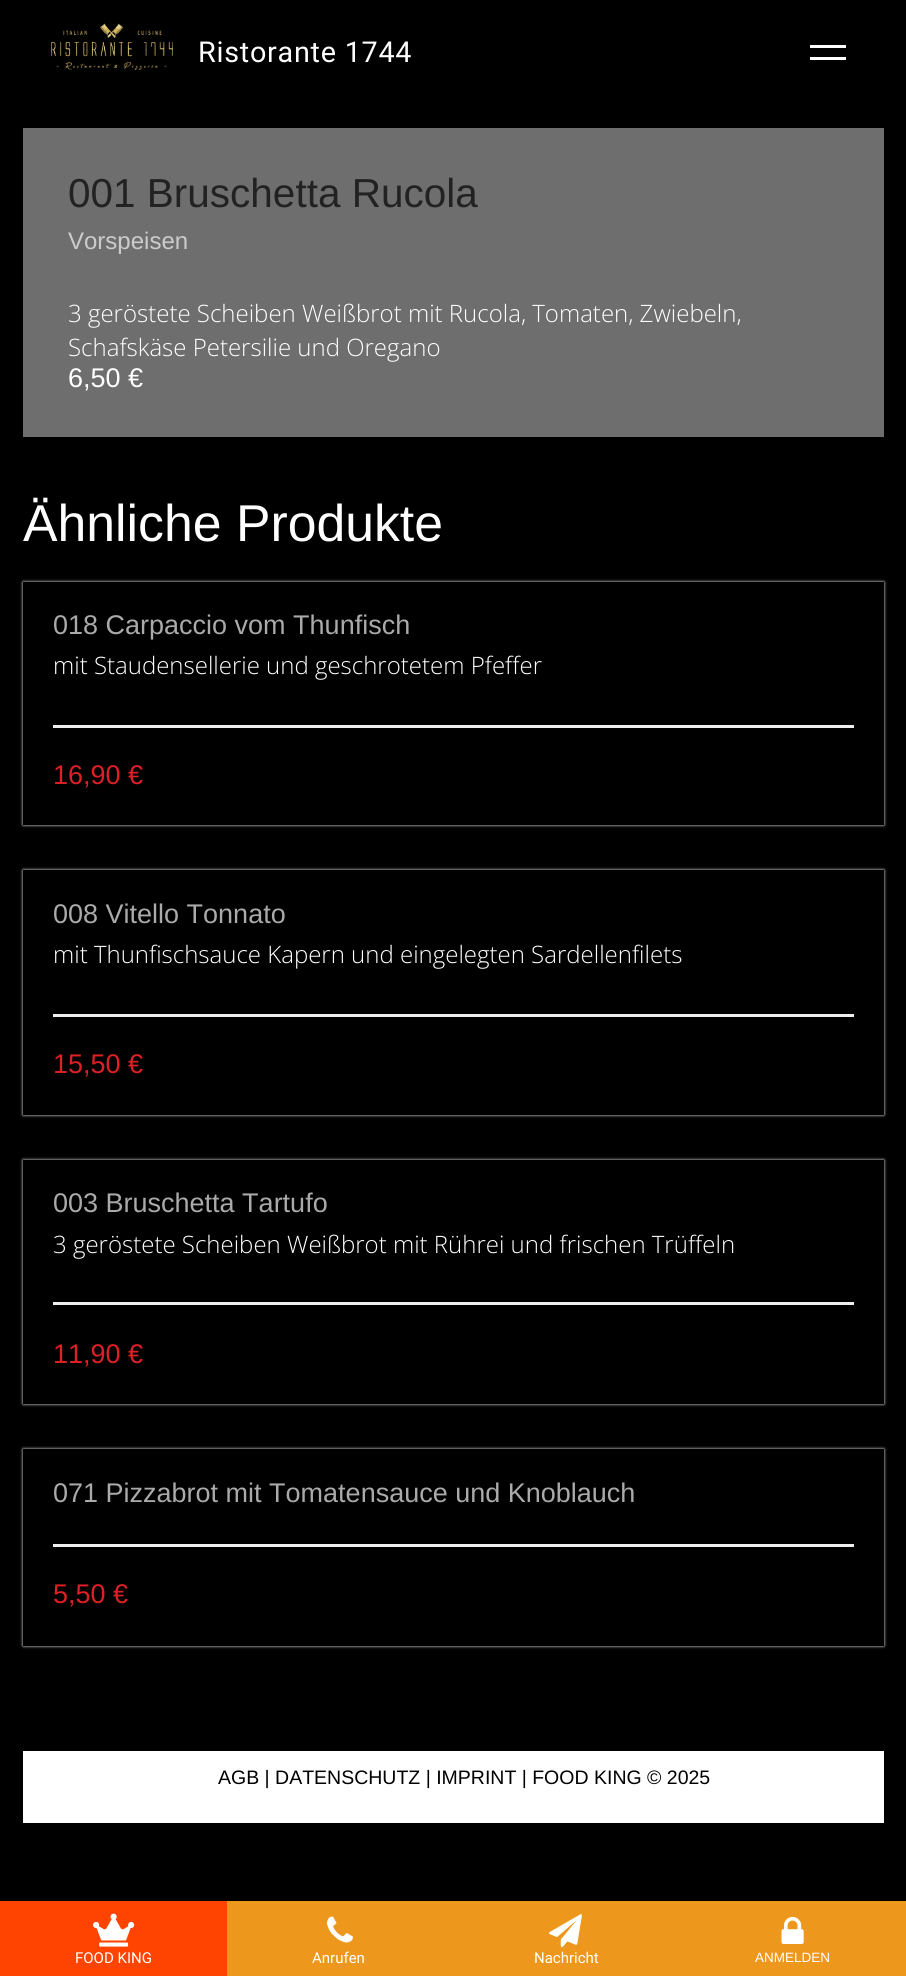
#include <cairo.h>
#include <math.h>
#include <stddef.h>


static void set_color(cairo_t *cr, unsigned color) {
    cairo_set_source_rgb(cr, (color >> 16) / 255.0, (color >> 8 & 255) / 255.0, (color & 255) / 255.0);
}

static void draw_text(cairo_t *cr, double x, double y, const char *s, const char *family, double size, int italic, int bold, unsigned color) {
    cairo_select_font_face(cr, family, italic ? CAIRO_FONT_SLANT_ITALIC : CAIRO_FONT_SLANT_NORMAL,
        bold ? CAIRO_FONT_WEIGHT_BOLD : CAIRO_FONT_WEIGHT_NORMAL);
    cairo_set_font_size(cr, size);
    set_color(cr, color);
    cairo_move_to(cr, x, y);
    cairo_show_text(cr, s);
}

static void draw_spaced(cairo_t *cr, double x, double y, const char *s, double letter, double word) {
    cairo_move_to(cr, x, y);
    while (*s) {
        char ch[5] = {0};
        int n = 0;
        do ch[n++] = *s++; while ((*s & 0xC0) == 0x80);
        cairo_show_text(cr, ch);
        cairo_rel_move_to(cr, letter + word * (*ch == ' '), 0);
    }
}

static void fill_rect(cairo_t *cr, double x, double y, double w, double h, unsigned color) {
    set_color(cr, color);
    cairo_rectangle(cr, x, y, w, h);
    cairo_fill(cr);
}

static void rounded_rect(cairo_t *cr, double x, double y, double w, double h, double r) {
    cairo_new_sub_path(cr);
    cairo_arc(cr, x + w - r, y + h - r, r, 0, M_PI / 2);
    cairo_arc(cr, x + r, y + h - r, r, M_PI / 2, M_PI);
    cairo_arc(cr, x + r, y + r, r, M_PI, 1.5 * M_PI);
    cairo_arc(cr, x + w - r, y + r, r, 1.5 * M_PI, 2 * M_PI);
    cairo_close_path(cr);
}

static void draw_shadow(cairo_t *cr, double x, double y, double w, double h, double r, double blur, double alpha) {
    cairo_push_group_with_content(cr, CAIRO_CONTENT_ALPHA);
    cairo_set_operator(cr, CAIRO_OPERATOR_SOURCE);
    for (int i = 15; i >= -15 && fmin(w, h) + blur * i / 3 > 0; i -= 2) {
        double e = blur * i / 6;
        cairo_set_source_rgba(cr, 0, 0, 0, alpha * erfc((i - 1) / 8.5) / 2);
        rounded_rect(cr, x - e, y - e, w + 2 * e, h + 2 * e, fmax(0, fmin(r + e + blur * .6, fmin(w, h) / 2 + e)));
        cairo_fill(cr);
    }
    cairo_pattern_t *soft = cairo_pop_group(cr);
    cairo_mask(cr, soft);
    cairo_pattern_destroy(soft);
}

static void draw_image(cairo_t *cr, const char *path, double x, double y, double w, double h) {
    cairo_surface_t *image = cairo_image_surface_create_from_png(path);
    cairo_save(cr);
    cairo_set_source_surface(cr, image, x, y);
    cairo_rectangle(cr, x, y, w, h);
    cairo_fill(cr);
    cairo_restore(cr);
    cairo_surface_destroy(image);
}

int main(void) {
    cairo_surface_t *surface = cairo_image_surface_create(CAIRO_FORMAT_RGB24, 906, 1976);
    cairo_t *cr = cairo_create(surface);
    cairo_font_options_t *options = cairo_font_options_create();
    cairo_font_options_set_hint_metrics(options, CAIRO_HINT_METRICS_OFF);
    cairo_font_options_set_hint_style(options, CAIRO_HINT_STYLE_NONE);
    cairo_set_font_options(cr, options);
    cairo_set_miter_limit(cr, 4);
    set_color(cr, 0x000000);
    cairo_paint(cr);
    draw_image(cr, "assets/img1.png", 51, 23, 122, 47);
    cairo_select_font_face(cr, "Roboto", CAIRO_FONT_SLANT_NORMAL, CAIRO_FONT_WEIGHT_NORMAL);
    cairo_set_font_size(cr, 28.75);
    set_color(cr, 0xFFFFFF);
    draw_spaced(cr, 198, 62, "Ristorante 1744", 0.75, 0);
    fill_rect(cr, 810, 45, 36, 3, 0xFFFFFF);
    fill_rect(cr, 810, 57, 36, 3, 0xFFFFFF);
    fill_rect(cr, 23, 128, 861, 309, 0x6E6E6E);
    draw_text(cr, 68, 207, "001 Bruschetta Rucola", "Liberation Sans", 40.5, 0, 0, 0x222222);
    draw_text(cr, 68, 249, "Vorspeisen", "Liberation Sans", 24, 0, 0, 0xCCCCCC);
    draw_text(cr, 68, 322, "3 geröstete Scheiben Weißbrot mit Rucola, Tomaten, Zwiebeln,", "Open Sans Light", 24, 0, 0, 0xFFFFFF);
    draw_text(cr, 68, 356, "Schafskäse Petersilie und Oregano", "Open Sans Light", 24, 0, 0, 0xFFFFFF);
    draw_text(cr, 68, 387, "6,50 €", "Liberation Sans", 27, 0, 0, 0xFFFFFF);
    draw_text(cr, 23, 541, "Ähnliche Produkte", "Liberation Sans", 51.75, 0, 0, 0xFFFFFF);
    set_color(cr, 0xFFFFFF);
    draw_shadow(cr, 23, 582, 861, 243, 0, 1.5, 1);
    fill_rect(cr, 23, 582, 861, 243, 0x000000);
    draw_text(cr, 53, 634, "018 Carpaccio vom Thunfisch", "Liberation Sans", 27, 0, 0, 0xAAAAAA);
    draw_text(cr, 53, 674, "mit Staudensellerie und geschrotetem Pfeffer", "Open Sans Light", 24, 0, 0, 0xFFFFFF);
    fill_rect(cr, 53, 725, 801, 3, 0xEEEEEE);
    draw_text(cr, 53, 784, "16,90 €", "Liberation Sans", 27, 0, 0, 0xDD1F26);
    set_color(cr, 0xFFFFFF);
    draw_shadow(cr, 23, 870, 861, 245, 0, 1.5, 1);
    fill_rect(cr, 23, 870, 861, 245, 0x000000);
    draw_text(cr, 53, 923, "008 Vitello Tonnato", "Liberation Sans", 27, 0, 0, 0xAAAAAA);
    draw_text(cr, 53, 963, "mit Thunfischsauce Kapern und eingelegten Sardellenfilets", "Open Sans Light", 24, 0, 0, 0xFFFFFF);
    fill_rect(cr, 53, 1014, 801, 3, 0xEEEEEE);
    draw_text(cr, 53, 1073, "15,50 €", "Liberation Sans", 27, 0, 0, 0xDD1F26);
    set_color(cr, 0xFFFFFF);
    draw_shadow(cr, 23, 1160, 861, 244, 0, 1.5, 1);
    fill_rect(cr, 23, 1160, 861, 244, 0x000000);
    draw_text(cr, 53, 1212, "003 Bruschetta Tartufo", "Liberation Sans", 27, 0, 0, 0xAAAAAA);
    draw_text(cr, 53, 1253, "3 geröstete Scheiben Weißbrot mit Rührei und frischen Trüffeln", "Open Sans Light", 24, 0, 0, 0xFFFFFF);
    fill_rect(cr, 53, 1302, 801, 3, 0xEEEEEE);
    draw_text(cr, 53, 1363, "11,90 €", "Liberation Sans", 27, 0, 0, 0xDD1F26);
    set_color(cr, 0xFFFFFF);
    draw_shadow(cr, 23, 1449, 861, 197, 0, 1.5, 1);
    fill_rect(cr, 23, 1449, 861, 197, 0x000000);
    draw_text(cr, 53, 1502, "071 Pizzabrot mit Tomatensauce und Knoblauch", "Liberation Sans", 27, 0, 0, 0xAAAAAA);
    fill_rect(cr, 53, 1544, 801, 3, 0xEEEEEE);
    draw_text(cr, 53, 1603, "5,50 €", "Liberation Sans", 27, 0, 0, 0xDD1F26);
    fill_rect(cr, 23, 1751, 861, 72, 0xFFFFFF);
    draw_text(cr, 218, 1784, "AGB | DATENSCHUTZ | IMPRINT | FOOD KING © 2025", "Liberation Sans", 19.5, 0, 0, 0x000000);
    fill_rect(cr, 0, 1901, 227, 75, 0xFF4300);
    draw_image(cr, "assets/img2.png", 93, 1913, 42, 34);
    draw_text(cr, 75, 1963, "FOOD KING", "Roboto", 15, 0, 0, 0xFFFFFF);
    fill_rect(cr, 227, 1901, 679, 75, 0xED971C);
    draw_image(cr, "assets/img3.png", 327, 1916, 26, 27);
    draw_text(cr, 312, 1963, "Anrufen", "Roboto", 15, 0, 0, 0xFFFFFF);
    draw_image(cr, "assets/img4.png", 549, 1914, 33, 34);
    draw_text(cr, 534, 1963, "Nachricht", "Roboto", 15, 0, 0, 0xFFFFFF);
    draw_image(cr, "assets/img5.png", 781, 1916, 23, 28);
    draw_text(cr, 755, 1962, "ANMELDEN", "Liberation Sans", 13.5, 0, 0, 0xFFFFFF);
    cairo_surface_write_to_png(surface, "output.png");
    cairo_font_options_destroy(options);
    cairo_destroy(cr);
    cairo_surface_destroy(surface);
    return 0;
}
